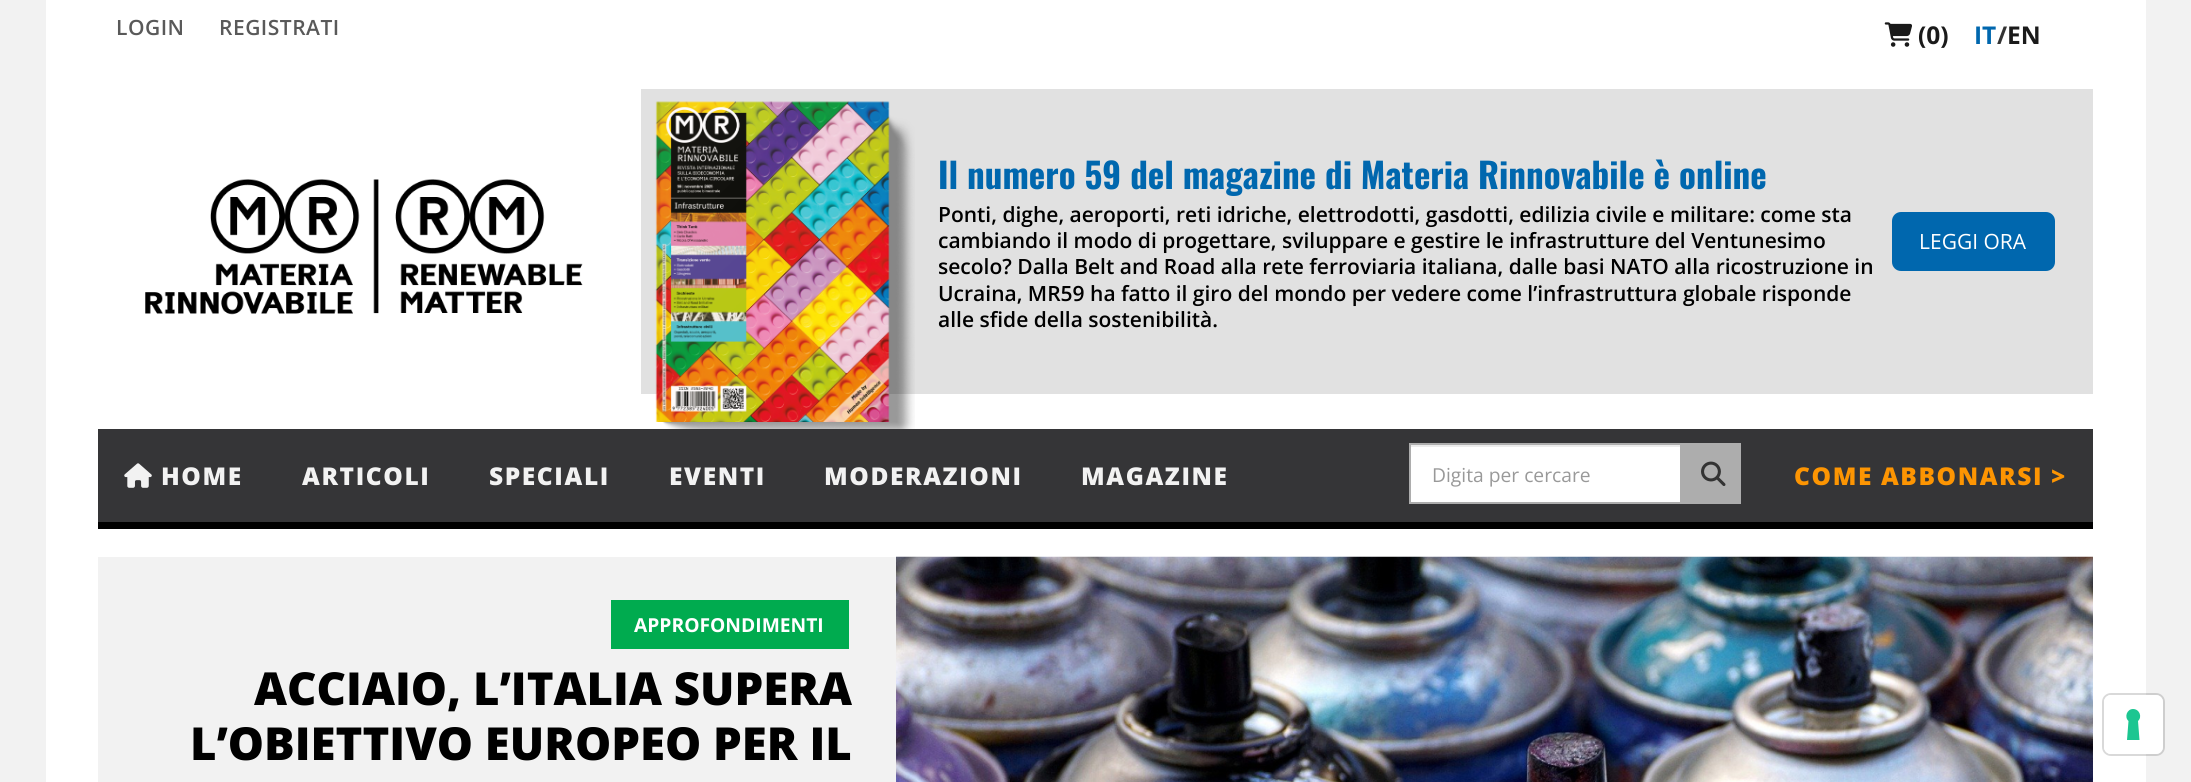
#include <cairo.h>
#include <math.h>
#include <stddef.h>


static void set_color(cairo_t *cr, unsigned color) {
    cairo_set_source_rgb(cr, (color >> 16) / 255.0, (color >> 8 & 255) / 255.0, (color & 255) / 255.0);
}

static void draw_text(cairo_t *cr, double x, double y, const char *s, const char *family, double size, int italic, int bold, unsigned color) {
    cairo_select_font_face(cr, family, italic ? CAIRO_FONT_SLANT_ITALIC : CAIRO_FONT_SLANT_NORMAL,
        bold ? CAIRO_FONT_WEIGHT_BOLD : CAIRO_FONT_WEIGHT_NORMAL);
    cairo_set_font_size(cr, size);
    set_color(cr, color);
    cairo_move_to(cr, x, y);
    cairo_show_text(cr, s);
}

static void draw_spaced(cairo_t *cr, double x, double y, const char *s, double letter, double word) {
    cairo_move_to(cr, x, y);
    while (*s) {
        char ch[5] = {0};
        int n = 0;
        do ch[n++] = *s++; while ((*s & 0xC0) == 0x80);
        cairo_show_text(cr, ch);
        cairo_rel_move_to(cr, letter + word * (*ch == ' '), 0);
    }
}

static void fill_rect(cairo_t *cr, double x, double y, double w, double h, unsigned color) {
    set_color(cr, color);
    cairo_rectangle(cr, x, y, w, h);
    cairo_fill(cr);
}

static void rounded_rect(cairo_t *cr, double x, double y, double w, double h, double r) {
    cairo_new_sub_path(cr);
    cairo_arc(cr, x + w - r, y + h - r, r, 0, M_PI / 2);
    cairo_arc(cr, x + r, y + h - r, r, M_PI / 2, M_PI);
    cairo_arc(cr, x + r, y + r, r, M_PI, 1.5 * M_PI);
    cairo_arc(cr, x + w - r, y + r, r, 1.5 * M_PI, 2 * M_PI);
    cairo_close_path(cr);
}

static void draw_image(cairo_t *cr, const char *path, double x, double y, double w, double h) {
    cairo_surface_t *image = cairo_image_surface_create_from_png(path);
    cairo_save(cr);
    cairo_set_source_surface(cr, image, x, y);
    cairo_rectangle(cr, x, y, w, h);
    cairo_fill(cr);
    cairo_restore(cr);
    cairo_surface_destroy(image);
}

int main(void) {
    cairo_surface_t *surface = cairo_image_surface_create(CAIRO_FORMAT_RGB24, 2191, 782);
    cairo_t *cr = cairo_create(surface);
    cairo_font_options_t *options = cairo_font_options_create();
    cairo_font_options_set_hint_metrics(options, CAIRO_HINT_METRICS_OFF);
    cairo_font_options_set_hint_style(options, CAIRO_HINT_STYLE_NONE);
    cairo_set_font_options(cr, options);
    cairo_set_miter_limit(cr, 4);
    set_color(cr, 0xF2F2F2);
    cairo_paint(cr);
    fill_rect(cr, 46, 0, 2100, 782, 0xFFFFFF);
    cairo_select_font_face(cr, "Open Sans SemiBold", CAIRO_FONT_SLANT_NORMAL, CAIRO_FONT_WEIGHT_NORMAL);
    cairo_set_font_size(cr, 21);
    set_color(cr, 0x595959);
    draw_spaced(cr, 116, 35, "LOGIN", 0.5, 0);
    draw_spaced(cr, 219, 35, "REGISTRATI", 0.5, 0);
    draw_image(cr, "assets/img1.png", 1884, 22, 28, 25);
    draw_text(cr, 1918, 44, "(0)", "Open Sans", 24.5, 0, 1, 0x1A1A1A);
    draw_text(cr, 1974, 44, "IT", "Open Sans", 24.5, 0, 1, 0x0067AE);
    draw_text(cr, 1997, 44, "/", "Open Sans", 24.5, 0, 1, 0x333333);
    draw_text(cr, 2007, 44, "EN", "Open Sans", 24.5, 0, 1, 0x1A1A1A);
    draw_image(cr, "assets/img2.png", 145, 179, 438, 136);
    fill_rect(cr, 641, 89, 1452, 305, 0xE1E1E1);
    draw_image(cr, "assets/img3.png", 655, 101, 260, 328);
    draw_text(cr, 938, 189, "Il numero 59 del magazine di Materia Rinnovabile è online", "Oswald", 35, 0, 1, 0x0067AE);
    draw_text(cr, 938, 222, "Ponti, dighe, aeroporti, reti idriche, elettrodotti, gasdotti, edilizia civile e militare: come sta", "Open Sans SemiBold", 21, 0, 0, 0x000000);
    draw_text(cr, 938, 248, "cambiando il modo di progettare, sviluppare e gestire le infrastrutture del Ventunesimo", "Open Sans SemiBold", 21, 0, 0, 0x000000);
    draw_text(cr, 938, 274, "secolo? Dalla Belt and Road alla rete ferroviaria italiana, dalle basi NATO alla ricostruzione in", "Open Sans SemiBold", 21, 0, 0, 0x000000);
    draw_text(cr, 938, 301, "Ucraina, MR59 ha fatto il giro del mondo per vedere come l’infrastruttura globale risponde", "Open Sans SemiBold", 21, 0, 0, 0x000000);
    draw_text(cr, 938, 327, "alle sfide della sostenibilità.", "Open Sans SemiBold", 21, 0, 0, 0x000000);
    set_color(cr, 0x0067AE);
    rounded_rect(cr, 1892, 212, 163, 59, 9);
    cairo_fill(cr);
    draw_text(cr, 1919, 249, "LEGGI ORA", "Open Sans", 21, 0, 0, 0xFFFFFF);
    fill_rect(cr, 98, 429, 1995, 93, 0x353537);
    fill_rect(cr, 98, 522, 1995, 7, 0x000000);
    draw_image(cr, "assets/img4.png", 124, 463, 28, 25);
    cairo_select_font_face(cr, "Open Sans ExtraBold", CAIRO_FONT_SLANT_NORMAL, CAIRO_FONT_WEIGHT_NORMAL);
    cairo_set_font_size(cr, 24.5);
    set_color(cr, 0xF2F2F2);
    draw_spaced(cr, 161, 485, "HOME", 1.6, 0);
    draw_spaced(cr, 302, 485, "ARTICOLI", 1.6, 0);
    draw_spaced(cr, 489, 485, "SPECIALI", 1.6, 0);
    draw_spaced(cr, 669, 485, "EVENTI", 1.6, 0);
    draw_spaced(cr, 824, 485, "MODERAZIONI", 1.6, 0);
    draw_spaced(cr, 1081, 485, "MAGAZINE", 1.6, 0);
    fill_rect(cr, 1411, 447, 269, 55, 0xFFFFFF);
    fill_rect(cr, 1411, 445, 269, 2, 0xECECEC);
    cairo_rectangle(cr, 1410, 444, 271, 59);
    set_color(cr, 0xADADAD);
    cairo_stroke(cr);
    draw_text(cr, 1432, 482, "Digita per cercare", "Open Sans", 19.25, 0, 0, 0x999999);
    fill_rect(cr, 1682, 443, 59, 61, 0xADADAD);
    draw_image(cr, "assets/img5.png", 1701, 461, 25, 25);
    cairo_select_font_face(cr, "Open Sans ExtraBold", CAIRO_FONT_SLANT_NORMAL, CAIRO_FONT_WEIGHT_NORMAL);
    cairo_set_font_size(cr, 24.5);
    set_color(cr, 0xFD9502);
    draw_spaced(cr, 1794, 485, "COME ABBONARSI >", 1.6, 0);
    fill_rect(cr, 98, 557, 798, 225, 0xF2F2F2);
    fill_rect(cr, 611, 600, 238, 49, 0x00AB4F);
    draw_text(cr, 634, 632, "APPROFONDIMENTI", "Open Sans", 19.25, 0, 1, 0xFFFFFF);
    draw_text(cr, 254, 705, "ACCIAIO, L’ITALIA SUPERA", "Open Sans ExtraBold", 45.5, 0, 0, 0x000000);
    draw_text(cr, 190, 760, "L’OBIETTIVO EUROPEO PER IL", "Open Sans ExtraBold", 45.5, 0, 0, 0x000000);
    draw_image(cr, "assets/img6.png", 896, 556, 1197, 226);
    rounded_rect(cr, 2103, 694, 61, 61, 8);
    cairo_set_source_rgba(cr, 0, 0, 0, 0.15);
    cairo_stroke(cr);
    set_color(cr, 0xFFFFFF);
    rounded_rect(cr, 2104, 695, 59, 59, 7);
    cairo_fill(cr);
    set_color(cr, 0x1CC691);
    cairo_set_fill_rule(cr, CAIRO_FILL_RULE_EVEN_ODD);
    cairo_new_path(cr);
    cairo_move_to(cr, 2133, 709);
    cairo_curve_to(cr, 2139.5, 709, 2142.5, 717, 2138, 721);
    cairo_line_to(cr, 2139.5, 740);
    cairo_line_to(cr, 2127, 740);
    cairo_line_to(cr, 2128.5, 721);
    cairo_curve_to(cr, 2124, 717, 2127, 709, 2133, 709);
    cairo_close_path(cr);
    cairo_fill(cr);
    cairo_surface_write_to_png(surface, "output.png");
    cairo_font_options_destroy(options);
    cairo_destroy(cr);
    cairo_surface_destroy(surface);
    return 0;
}
